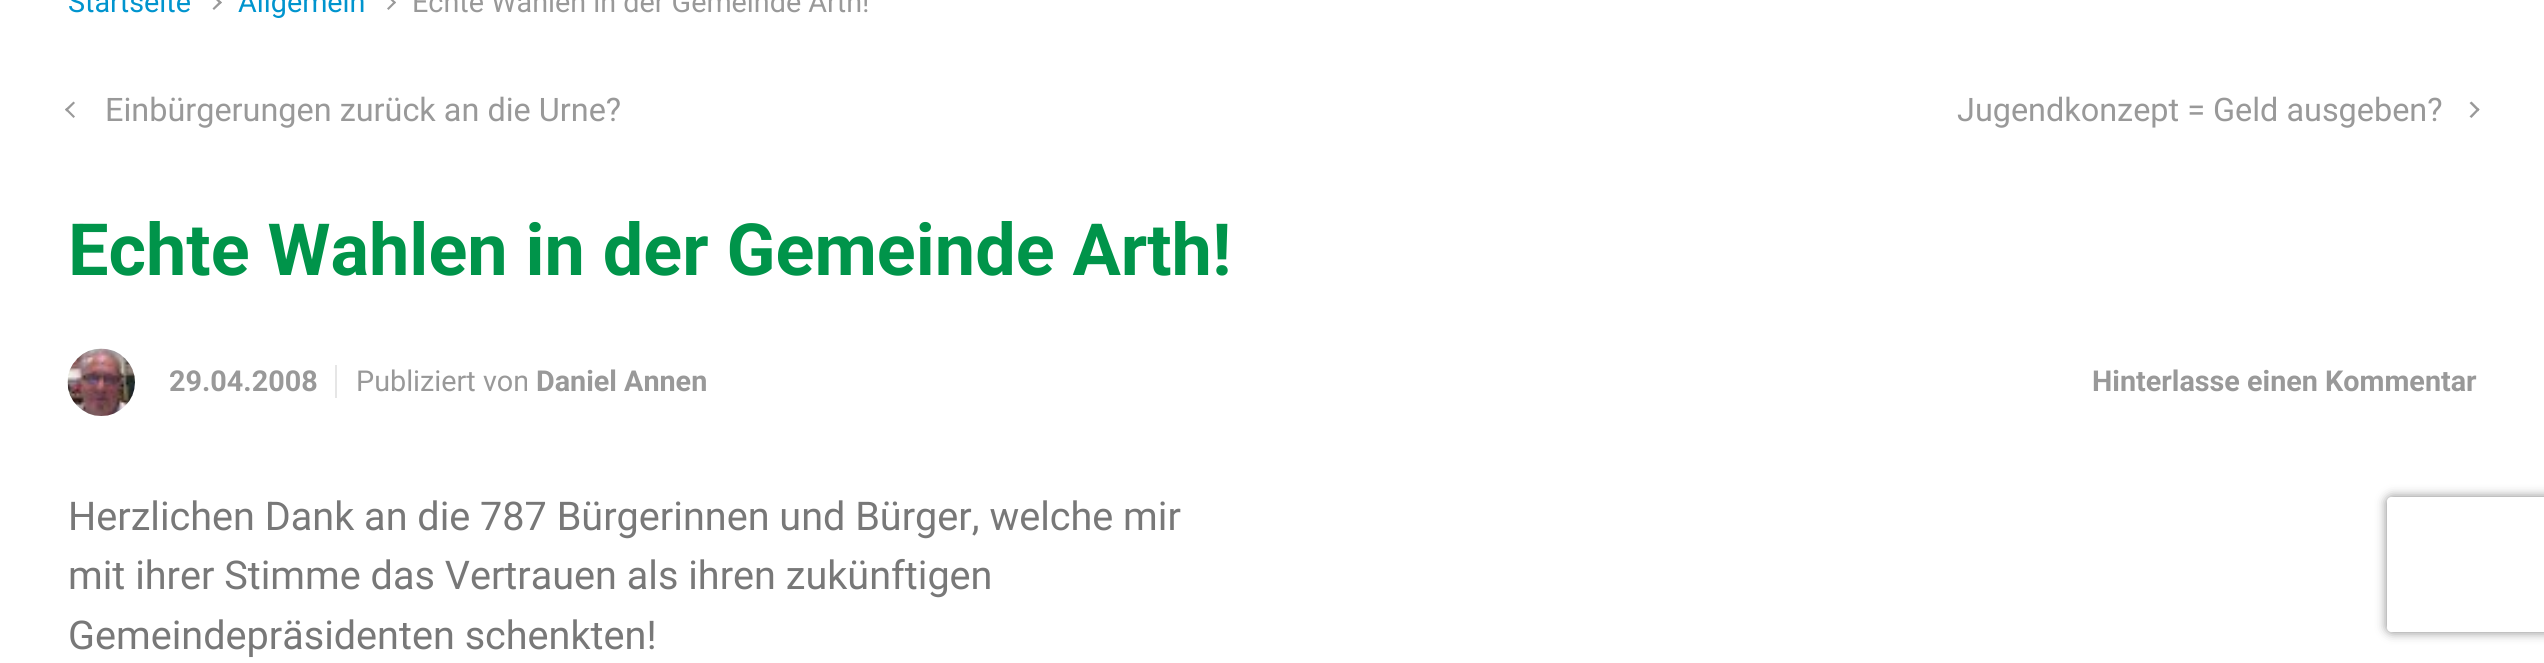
#include <cairo.h>
#include <math.h>
#include <stddef.h>


static void set_color(cairo_t *cr, unsigned color) {
    cairo_set_source_rgb(cr, (color >> 16) / 255.0, (color >> 8 & 255) / 255.0, (color & 255) / 255.0);
}

static void draw_text(cairo_t *cr, double x, double y, const char *s, const char *family, double size, int italic, int bold, unsigned color) {
    cairo_select_font_face(cr, family, italic ? CAIRO_FONT_SLANT_ITALIC : CAIRO_FONT_SLANT_NORMAL,
        bold ? CAIRO_FONT_WEIGHT_BOLD : CAIRO_FONT_WEIGHT_NORMAL);
    cairo_set_font_size(cr, size);
    set_color(cr, color);
    cairo_move_to(cr, x, y);
    cairo_show_text(cr, s);
}

static void fill_rect(cairo_t *cr, double x, double y, double w, double h, unsigned color) {
    set_color(cr, color);
    cairo_rectangle(cr, x, y, w, h);
    cairo_fill(cr);
}

static void rounded_rect(cairo_t *cr, double x, double y, double w, double h, double r) {
    cairo_new_sub_path(cr);
    cairo_arc(cr, x + w - r, y + h - r, r, 0, M_PI / 2);
    cairo_arc(cr, x + r, y + h - r, r, M_PI / 2, M_PI);
    cairo_arc(cr, x + r, y + r, r, M_PI, 1.5 * M_PI);
    cairo_arc(cr, x + w - r, y + r, r, 1.5 * M_PI, 2 * M_PI);
    cairo_close_path(cr);
}

static void draw_shadow(cairo_t *cr, double x, double y, double w, double h, double r, double blur, double alpha) {
    cairo_push_group_with_content(cr, CAIRO_CONTENT_ALPHA);
    cairo_set_operator(cr, CAIRO_OPERATOR_SOURCE);
    for (int i = 15; i >= -15 && fmin(w, h) + blur * i / 3 > 0; i -= 2) {
        double e = blur * i / 6;
        cairo_set_source_rgba(cr, 0, 0, 0, alpha * erfc((i - 1) / 8.5) / 2);
        rounded_rect(cr, x - e, y - e, w + 2 * e, h + 2 * e, fmax(0, fmin(r + e + blur * .6, fmin(w, h) / 2 + e)));
        cairo_fill(cr);
    }
    cairo_pattern_t *soft = cairo_pop_group(cr);
    cairo_mask(cr, soft);
    cairo_pattern_destroy(soft);
}

static void draw_image(cairo_t *cr, const char *path, double x, double y, double w, double h) {
    cairo_surface_t *image = cairo_image_surface_create_from_png(path);
    cairo_save(cr);
    cairo_set_source_surface(cr, image, x, y);
    cairo_rectangle(cr, x, y, w, h);
    cairo_fill(cr);
    cairo_restore(cr);
    cairo_surface_destroy(image);
}

int main(void) {
    cairo_surface_t *surface = cairo_image_surface_create(CAIRO_FORMAT_RGB24, 2544, 663);
    cairo_t *cr = cairo_create(surface);
    cairo_font_options_t *options = cairo_font_options_create();
    cairo_font_options_set_hint_metrics(options, CAIRO_HINT_METRICS_OFF);
    cairo_font_options_set_hint_style(options, CAIRO_HINT_STYLE_NONE);
    cairo_set_font_options(cr, options);
    cairo_set_miter_limit(cr, 4);
    set_color(cr, 0xFFFFFF);
    cairo_paint(cr);
    draw_text(cr, 68, 12, "Startseite", "Roboto", 28.75, 0, 0, 0x0094CE);
    set_color(cr, 0x999999);
    cairo_new_path(cr);
    cairo_move_to(cr, 212.5, -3.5);
    cairo_line_to(cr, 214, -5);
    cairo_line_to(cr, 222, 2.5);
    cairo_line_to(cr, 220, 4);
    cairo_close_path(cr);
    cairo_fill(cr);
    cairo_new_path(cr);
    cairo_move_to(cr, 212.5, 8.5);
    cairo_line_to(cr, 220, 1);
    cairo_line_to(cr, 222, 2.5);
    cairo_line_to(cr, 214, 10);
    cairo_close_path(cr);
    cairo_fill(cr);
    draw_text(cr, 238, 12, "Allgemein", "Roboto", 28.75, 0, 0, 0x0094CE);
    set_color(cr, 0x999999);
    cairo_new_path(cr);
    cairo_move_to(cr, 387, -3.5);
    cairo_line_to(cr, 388.5, -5);
    cairo_line_to(cr, 396, 2.5);
    cairo_line_to(cr, 394.5, 4);
    cairo_close_path(cr);
    cairo_fill(cr);
    cairo_new_path(cr);
    cairo_move_to(cr, 387, 8.5);
    cairo_line_to(cr, 394.5, 1);
    cairo_line_to(cr, 396, 2.5);
    cairo_line_to(cr, 388.5, 10);
    cairo_close_path(cr);
    cairo_fill(cr);
    draw_text(cr, 412, 12, "Echte Wahlen in der Gemeinde Arth!", "Roboto", 28.75, 0, 0, 0x999999);
    cairo_new_path(cr);
    cairo_move_to(cr, 75, 116.5);
    cairo_line_to(cr, 73.5, 118);
    cairo_line_to(cr, 65, 109.5);
    cairo_line_to(cr, 66.5, 108);
    cairo_close_path(cr);
    cairo_fill(cr);
    cairo_new_path(cr);
    cairo_move_to(cr, 75, 103);
    cairo_line_to(cr, 66.5, 111.5);
    cairo_line_to(cr, 65, 109.5);
    cairo_line_to(cr, 73.5, 101.5);
    cairo_close_path(cr);
    cairo_fill(cr);
    draw_text(cr, 105, 121, "Einbürgerungen zurück an die Urne?", "Roboto", 32.4, 0, 0, 0x999999);
    draw_text(cr, 1957, 121, "Jugendkonzept = Geld ausgeben?", "Roboto", 32.4, 0, 0, 0x999999);
    cairo_new_path(cr);
    cairo_move_to(cr, 2469.5, 103);
    cairo_line_to(cr, 2471.5, 101.5);
    cairo_line_to(cr, 2479.5, 109.5);
    cairo_line_to(cr, 2478, 111.5);
    cairo_close_path(cr);
    cairo_fill(cr);
    cairo_new_path(cr);
    cairo_move_to(cr, 2469.5, 116.5);
    cairo_line_to(cr, 2478, 108);
    cairo_line_to(cr, 2479.5, 109.5);
    cairo_line_to(cr, 2471.5, 118);
    cairo_close_path(cr);
    cairo_fill(cr);
    draw_text(cr, 68, 275, "Echte Wahlen in der Gemeinde Arth!", "Roboto", 72, 0, 1, 0x00944A);
    draw_image(cr, "assets/img1.png", 67, 348, 68, 68);
    draw_text(cr, 169, 391, "29.04.2008", "Roboto", 28.75, 0, 1, 0x999999);
    fill_rect(cr, 335, 365, 2, 33, 0xE6E6E6);
    draw_text(cr, 356, 391, "Publiziert von", "Roboto", 28.75, 0, 0, 0x999999);
    draw_text(cr, 536, 391, "Daniel Annen", "Roboto", 28.75, 0, 1, 0x999999);
    draw_text(cr, 2092, 391, "Hinterlasse einen Kommentar", "Roboto", 28.75, 0, 1, 0x999999);
    draw_text(cr, 68, 530, "Herzlichen Dank an die 787 Bürgerinnen und Bürger, welche mir", "Roboto", 39.6, 0, 0, 0x787878);
    draw_text(cr, 68, 589, "mit ihrer Stimme das Vertrauen als ihren zukünftigen", "Roboto", 39.6, 0, 0, 0x787878);
    draw_text(cr, 68, 649, "Gemeindepräsidenten schenkten!", "Roboto", 39.6, 0, 0, 0x787878);
    cairo_save(cr);
    cairo_set_fill_rule(cr, CAIRO_FILL_RULE_EVEN_ODD);
    cairo_new_path(cr);
    cairo_move_to(cr, 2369, 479);
    cairo_line_to(cr, 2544, 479);
    cairo_line_to(cr, 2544, 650);
    cairo_line_to(cr, 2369, 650);
    cairo_close_path(cr);
    cairo_move_to(cr, 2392, 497);
    cairo_line_to(cr, 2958, 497);
    cairo_curve_to(cr, 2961, 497, 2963, 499, 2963, 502);
    cairo_line_to(cr, 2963, 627);
    cairo_curve_to(cr, 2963, 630, 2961, 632, 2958, 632);
    cairo_line_to(cr, 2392, 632);
    cairo_curve_to(cr, 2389, 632, 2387, 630, 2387, 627);
    cairo_line_to(cr, 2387, 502);
    cairo_curve_to(cr, 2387, 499, 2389, 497, 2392, 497);
    cairo_close_path(cr);
    cairo_clip(cr);
    set_color(cr, 0x808080);
    draw_shadow(cr, 2387, 497, 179, 135, 5, 5.5, 1);
    cairo_restore(cr);
    cairo_surface_write_to_png(surface, "output.png");
    cairo_font_options_destroy(options);
    cairo_destroy(cr);
    cairo_surface_destroy(surface);
    return 0;
}
